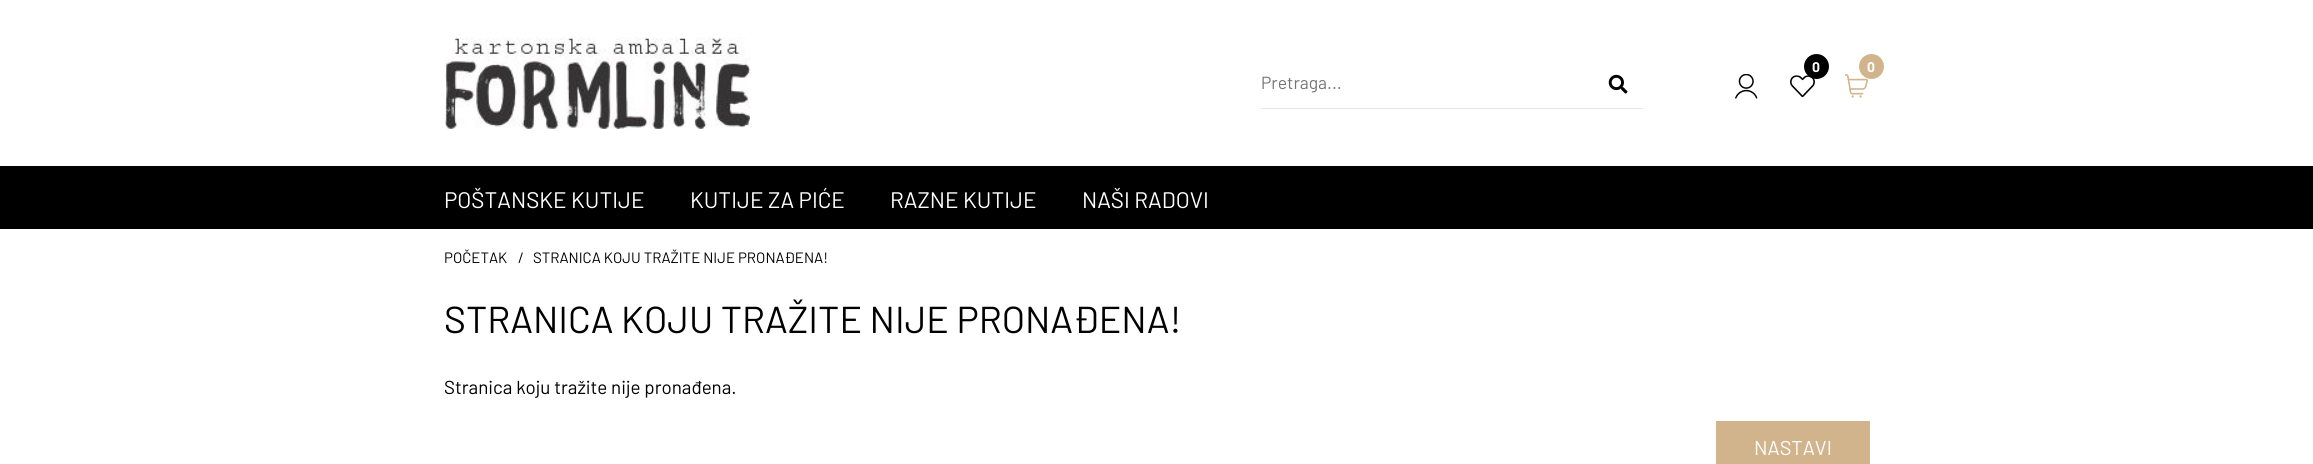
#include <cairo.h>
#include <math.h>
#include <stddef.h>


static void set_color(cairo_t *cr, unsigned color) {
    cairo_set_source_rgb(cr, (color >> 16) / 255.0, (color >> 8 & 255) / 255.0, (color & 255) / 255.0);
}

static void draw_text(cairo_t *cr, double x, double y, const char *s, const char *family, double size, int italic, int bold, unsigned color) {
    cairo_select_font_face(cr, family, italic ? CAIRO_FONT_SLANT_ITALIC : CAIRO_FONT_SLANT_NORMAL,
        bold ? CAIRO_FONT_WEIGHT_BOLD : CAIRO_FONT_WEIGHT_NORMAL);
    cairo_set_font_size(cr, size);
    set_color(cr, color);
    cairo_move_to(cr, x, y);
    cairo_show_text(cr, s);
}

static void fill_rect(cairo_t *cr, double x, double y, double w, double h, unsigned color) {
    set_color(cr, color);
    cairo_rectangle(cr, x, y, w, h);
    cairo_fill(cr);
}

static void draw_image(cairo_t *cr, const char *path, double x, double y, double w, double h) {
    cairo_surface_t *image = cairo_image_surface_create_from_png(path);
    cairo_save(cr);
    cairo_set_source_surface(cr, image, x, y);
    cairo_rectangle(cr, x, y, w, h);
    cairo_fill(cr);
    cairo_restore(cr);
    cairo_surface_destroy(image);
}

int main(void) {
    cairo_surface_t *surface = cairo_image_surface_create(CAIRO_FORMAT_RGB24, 2313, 464);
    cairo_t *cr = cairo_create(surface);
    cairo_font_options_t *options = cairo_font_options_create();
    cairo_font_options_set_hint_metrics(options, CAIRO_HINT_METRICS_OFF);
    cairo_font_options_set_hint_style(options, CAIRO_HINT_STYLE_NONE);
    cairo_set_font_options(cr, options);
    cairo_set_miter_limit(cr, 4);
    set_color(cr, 0xFFFFFF);
    cairo_paint(cr);
    draw_image(cr, "assets/img1.png", 445, 37, 305, 92);
    draw_image(cr, "assets/img2.png", 1790, 75, 25, 23);
    set_color(cr, 0x000000);
    cairo_arc(cr, 1816.5, 66.5, 12.5, 0, 2 * M_PI);
    cairo_fill(cr);
    draw_text(cr, 1812, 72, "0", "Barlow", 14, 0, 1, 0xFFFFFF);
    set_color(cr, 0xD2B48C);
    cairo_new_path(cr);
    cairo_arc(cr, 1871.5, 66.5, 12.5, 0, 2 * M_PI);
    cairo_fill(cr);
    draw_text(cr, 1867, 72, "0", "Barlow", 14, 0, 1, 0xFFFFFF);
    draw_image(cr, "assets/img3.png", 1845, 74, 23, 24);
    fill_rect(cr, 1261, 108, 382, 1, 0xE6E6E6);
    draw_text(cr, 1261, 89, "Pretraga...", "Barlow", 17.5, 0, 0, 0x757575);
    draw_image(cr, "assets/img4.png", 1608, 74, 20, 20);
    draw_image(cr, "assets/img5.png", 1735, 74, 23, 25);
    fill_rect(cr, 0, 166, 2313, 63, 0x000000);
    draw_text(cr, 444, 208, "POŠTANSKE KUTIJE", "Barlow", 22.5, 0, 0, 0xFFFFFF);
    draw_text(cr, 690, 208, "KUTIJE ZA PIĆE", "Barlow", 22.5, 0, 0, 0xFFFFFF);
    draw_text(cr, 890, 208, "RAZNE KUTIJE", "Barlow", 22.5, 0, 0, 0xFFFFFF);
    draw_text(cr, 1082, 208, "NAŠI RADOVI", "Barlow", 22.5, 0, 0, 0xFFFFFF);
    draw_text(cr, 444, 263, "POČETAK", "Barlow", 15, 0, 0, 0x000000);
    draw_text(cr, 518, 263, "/", "Barlow", 15, 0, 0, 0x000000);
    draw_text(cr, 533, 263, "STRANICA KOJU TRAŽITE NIJE PRONAĐENA!", "Barlow", 15, 0, 0, 0x000000);
    draw_text(cr, 444, 333, "STRANICA KOJU TRAŽITE NIJE PRONAĐENA!", "Barlow", 37.5, 0, 0, 0x000000);
    draw_text(cr, 444, 394, "Stranica koju tražite nije pronađena.", "Barlow", 18.75, 0, 0, 0x000000);
    fill_rect(cr, 1716, 421, 154, 43, 0xD2B48C);
    draw_text(cr, 1754, 455, "NASTAVI", "Barlow", 20, 0, 0, 0xFFFFFF);
    cairo_surface_write_to_png(surface, "output.png");
    cairo_font_options_destroy(options);
    cairo_destroy(cr);
    cairo_surface_destroy(surface);
    return 0;
}
